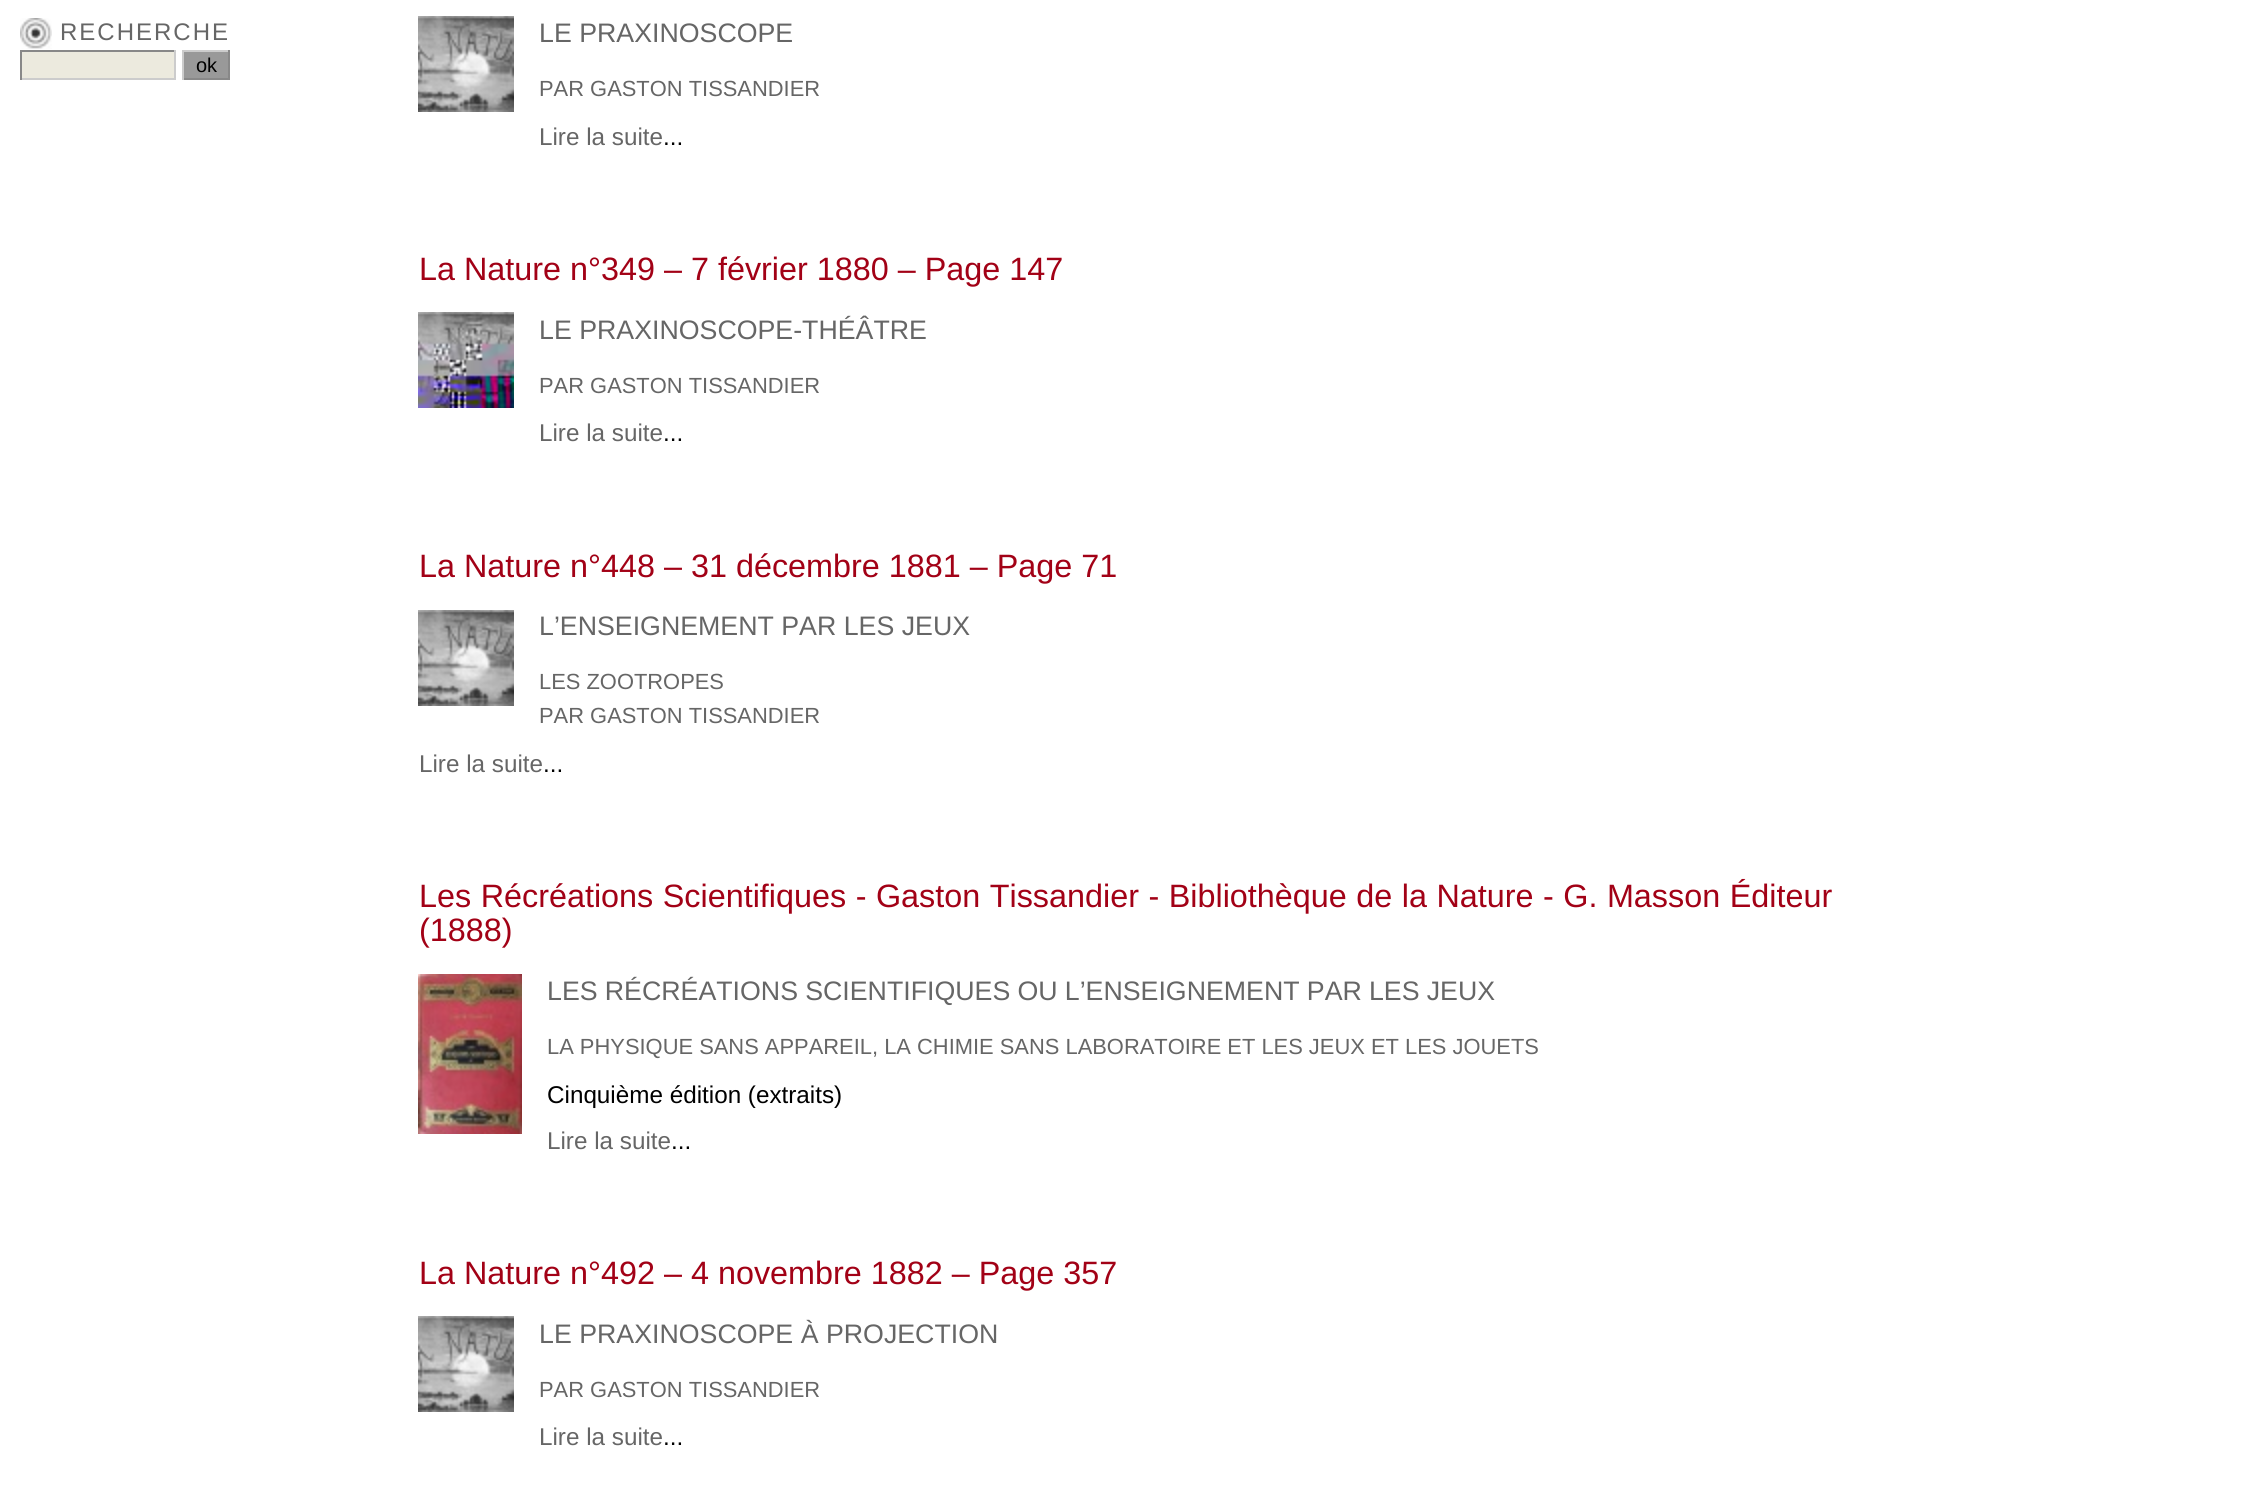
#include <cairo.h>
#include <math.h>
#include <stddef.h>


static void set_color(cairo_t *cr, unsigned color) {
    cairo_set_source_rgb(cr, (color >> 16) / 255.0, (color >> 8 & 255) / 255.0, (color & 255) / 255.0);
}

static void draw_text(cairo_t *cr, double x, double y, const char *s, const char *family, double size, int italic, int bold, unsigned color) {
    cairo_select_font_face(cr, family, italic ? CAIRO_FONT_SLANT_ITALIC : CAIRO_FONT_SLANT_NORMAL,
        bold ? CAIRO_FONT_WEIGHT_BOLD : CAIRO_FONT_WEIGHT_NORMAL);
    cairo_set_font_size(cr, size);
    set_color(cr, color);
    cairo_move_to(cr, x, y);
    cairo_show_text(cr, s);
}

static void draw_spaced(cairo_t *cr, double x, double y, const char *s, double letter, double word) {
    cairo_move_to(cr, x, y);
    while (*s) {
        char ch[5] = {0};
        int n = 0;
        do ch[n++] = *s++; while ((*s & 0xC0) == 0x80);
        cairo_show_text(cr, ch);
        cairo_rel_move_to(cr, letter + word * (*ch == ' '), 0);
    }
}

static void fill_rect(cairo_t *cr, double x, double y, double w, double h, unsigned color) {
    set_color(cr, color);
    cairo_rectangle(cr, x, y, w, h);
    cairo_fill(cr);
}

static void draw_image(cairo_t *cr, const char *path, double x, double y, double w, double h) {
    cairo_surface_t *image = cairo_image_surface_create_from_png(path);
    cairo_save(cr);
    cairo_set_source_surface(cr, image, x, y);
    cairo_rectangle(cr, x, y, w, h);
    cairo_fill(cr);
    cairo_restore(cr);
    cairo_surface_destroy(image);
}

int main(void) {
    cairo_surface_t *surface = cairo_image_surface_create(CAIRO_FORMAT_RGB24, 2241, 1485);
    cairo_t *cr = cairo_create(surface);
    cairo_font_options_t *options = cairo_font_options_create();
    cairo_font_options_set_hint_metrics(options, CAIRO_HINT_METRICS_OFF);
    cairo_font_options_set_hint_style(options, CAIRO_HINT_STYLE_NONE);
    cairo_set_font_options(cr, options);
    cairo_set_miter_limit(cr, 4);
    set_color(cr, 0xFFFFFF);
    cairo_paint(cr);
    draw_image(cr, "assets/img1.png", 20, 18, 32, 31);
    cairo_select_font_face(cr, "Liberation Sans", CAIRO_FONT_SLANT_NORMAL, CAIRO_FONT_WEIGHT_NORMAL);
    cairo_set_font_size(cr, 24);
    set_color(cr, 0x666666);
    draw_spaced(cr, 60, 40, "RECHERCHE", 2, 0);
    fill_rect(cr, 22, 52, 152, 26, 0xECEADE);
    fill_rect(cr, 20, 50, 156, 2, 0x888888);
    fill_rect(cr, 174, 50, 2, 30, 0xCCCCCC);
    fill_rect(cr, 20, 78, 156, 2, 0xCCCCCC);
    fill_rect(cr, 20, 50, 2, 30, 0x888888);
    fill_rect(cr, 184, 52, 44, 26, 0x999999);
    fill_rect(cr, 182, 50, 48, 2, 0xCCCCCC);
    fill_rect(cr, 228, 50, 2, 30, 0x888888);
    fill_rect(cr, 182, 78, 48, 2, 0x888888);
    fill_rect(cr, 182, 50, 2, 30, 0xCCCCCC);
    draw_text(cr, 196, 72, "ok", "Liberation Sans", 20, 0, 0, 0x000000);
    draw_image(cr, "assets/img2.png", 418, 16, 96, 96);
    draw_text(cr, 539, 42, "LE PRAXINOSCOPE", "Liberation Sans", 26.75, 0, 0, 0x666666);
    draw_text(cr, 539, 96, "PAR GASTON TISSANDIER", "Liberation Sans", 21.9, 0, 0, 0x666666);
    draw_text(cr, 539, 145, "Lire la suite", "Liberation Sans", 24.25, 0, 0, 0x666666);
    draw_text(cr, 663, 145, "...", "Liberation Sans", 24.25, 0, 0, 0x000000);
    draw_text(cr, 419, 280, "La Nature n°349 – 7 février 1880 – Page 147", "Liberation Sans", 32.35, 0, 0, 0xA20116);
    draw_image(cr, "assets/img3.png", 418, 312, 96, 96);
    draw_text(cr, 539, 339, "LE PRAXINOSCOPE-THÉÂTRE", "Liberation Sans", 26.75, 0, 0, 0x666666);
    draw_text(cr, 539, 393, "PAR GASTON TISSANDIER", "Liberation Sans", 21.9, 0, 0, 0x666666);
    draw_text(cr, 539, 441, "Lire la suite", "Liberation Sans", 24.25, 0, 0, 0x666666);
    draw_text(cr, 663, 441, "...", "Liberation Sans", 24.25, 0, 0, 0x000000);
    draw_text(cr, 419, 577, "La Nature n°448 – 31 décembre 1881 – Page 71", "Liberation Sans", 32.35, 0, 0, 0xA20116);
    draw_image(cr, "assets/img2.png", 418, 610, 96, 96);
    draw_text(cr, 539, 635, "L’ENSEIGNEMENT PAR LES JEUX", "Liberation Sans", 26.75, 0, 0, 0x666666);
    draw_text(cr, 539, 689, "LES ZOOTROPES", "Liberation Sans", 21.9, 0, 0, 0x666666);
    draw_text(cr, 539, 723, "PAR GASTON TISSANDIER", "Liberation Sans", 21.9, 0, 0, 0x666666);
    draw_text(cr, 419, 772, "Lire la suite", "Liberation Sans", 24.25, 0, 0, 0x666666);
    draw_text(cr, 543, 772, "...", "Liberation Sans", 24.25, 0, 0, 0x000000);
    cairo_set_font_size(cr, 32.35);
    set_color(cr, 0xA20116);
    draw_spaced(cr, 419, 907, "Les Récréations Scientifiques - Gaston Tissandier - Bibliothèque de la Nature - G. Masson Éditeur", 0, 0.5);
    draw_text(cr, 419, 941, "(1888)", "Liberation Sans", 32.35, 0, 0, 0xA20116);
    draw_image(cr, "assets/img4.png", 418, 974, 104, 160);
    cairo_set_font_size(cr, 26.75);
    set_color(cr, 0x666666);
    draw_spaced(cr, 547, 1000, "LES RÉCRÉATIONS SCIENTIFIQUES OU L’ENSEIGNEMENT PAR LES JEUX", 0, -0.25);
    draw_text(cr, 547, 1054, "LA PHYSIQUE SANS APPAREIL, LA CHIMIE SANS LABORATOIRE ET LES JEUX ET LES JOUETS", "Liberation Sans", 21.9, 0, 0, 0x666666);
    draw_text(cr, 547, 1103, "Cinquième édition (extraits)", "Liberation Sans", 24.25, 0, 0, 0x000000);
    draw_text(cr, 547, 1149, "Lire la suite", "Liberation Sans", 24.25, 0, 0, 0x666666);
    draw_text(cr, 671, 1149, "...", "Liberation Sans", 24.25, 0, 0, 0x000000);
    draw_text(cr, 419, 1284, "La Nature n°492 – 4 novembre 1882 – Page 357", "Liberation Sans", 32.35, 0, 0, 0xA20116);
    draw_image(cr, "assets/img2.png", 418, 1316, 96, 96);
    draw_text(cr, 539, 1343, "LE PRAXINOSCOPE À PROJECTION", "Liberation Sans", 26.75, 0, 0, 0x666666);
    draw_text(cr, 539, 1397, "PAR GASTON TISSANDIER", "Liberation Sans", 21.9, 0, 0, 0x666666);
    draw_text(cr, 539, 1445, "Lire la suite", "Liberation Sans", 24.25, 0, 0, 0x666666);
    draw_text(cr, 663, 1445, "...", "Liberation Sans", 24.25, 0, 0, 0x000000);
    cairo_surface_write_to_png(surface, "output.png");
    cairo_font_options_destroy(options);
    cairo_destroy(cr);
    cairo_surface_destroy(surface);
    return 0;
}
